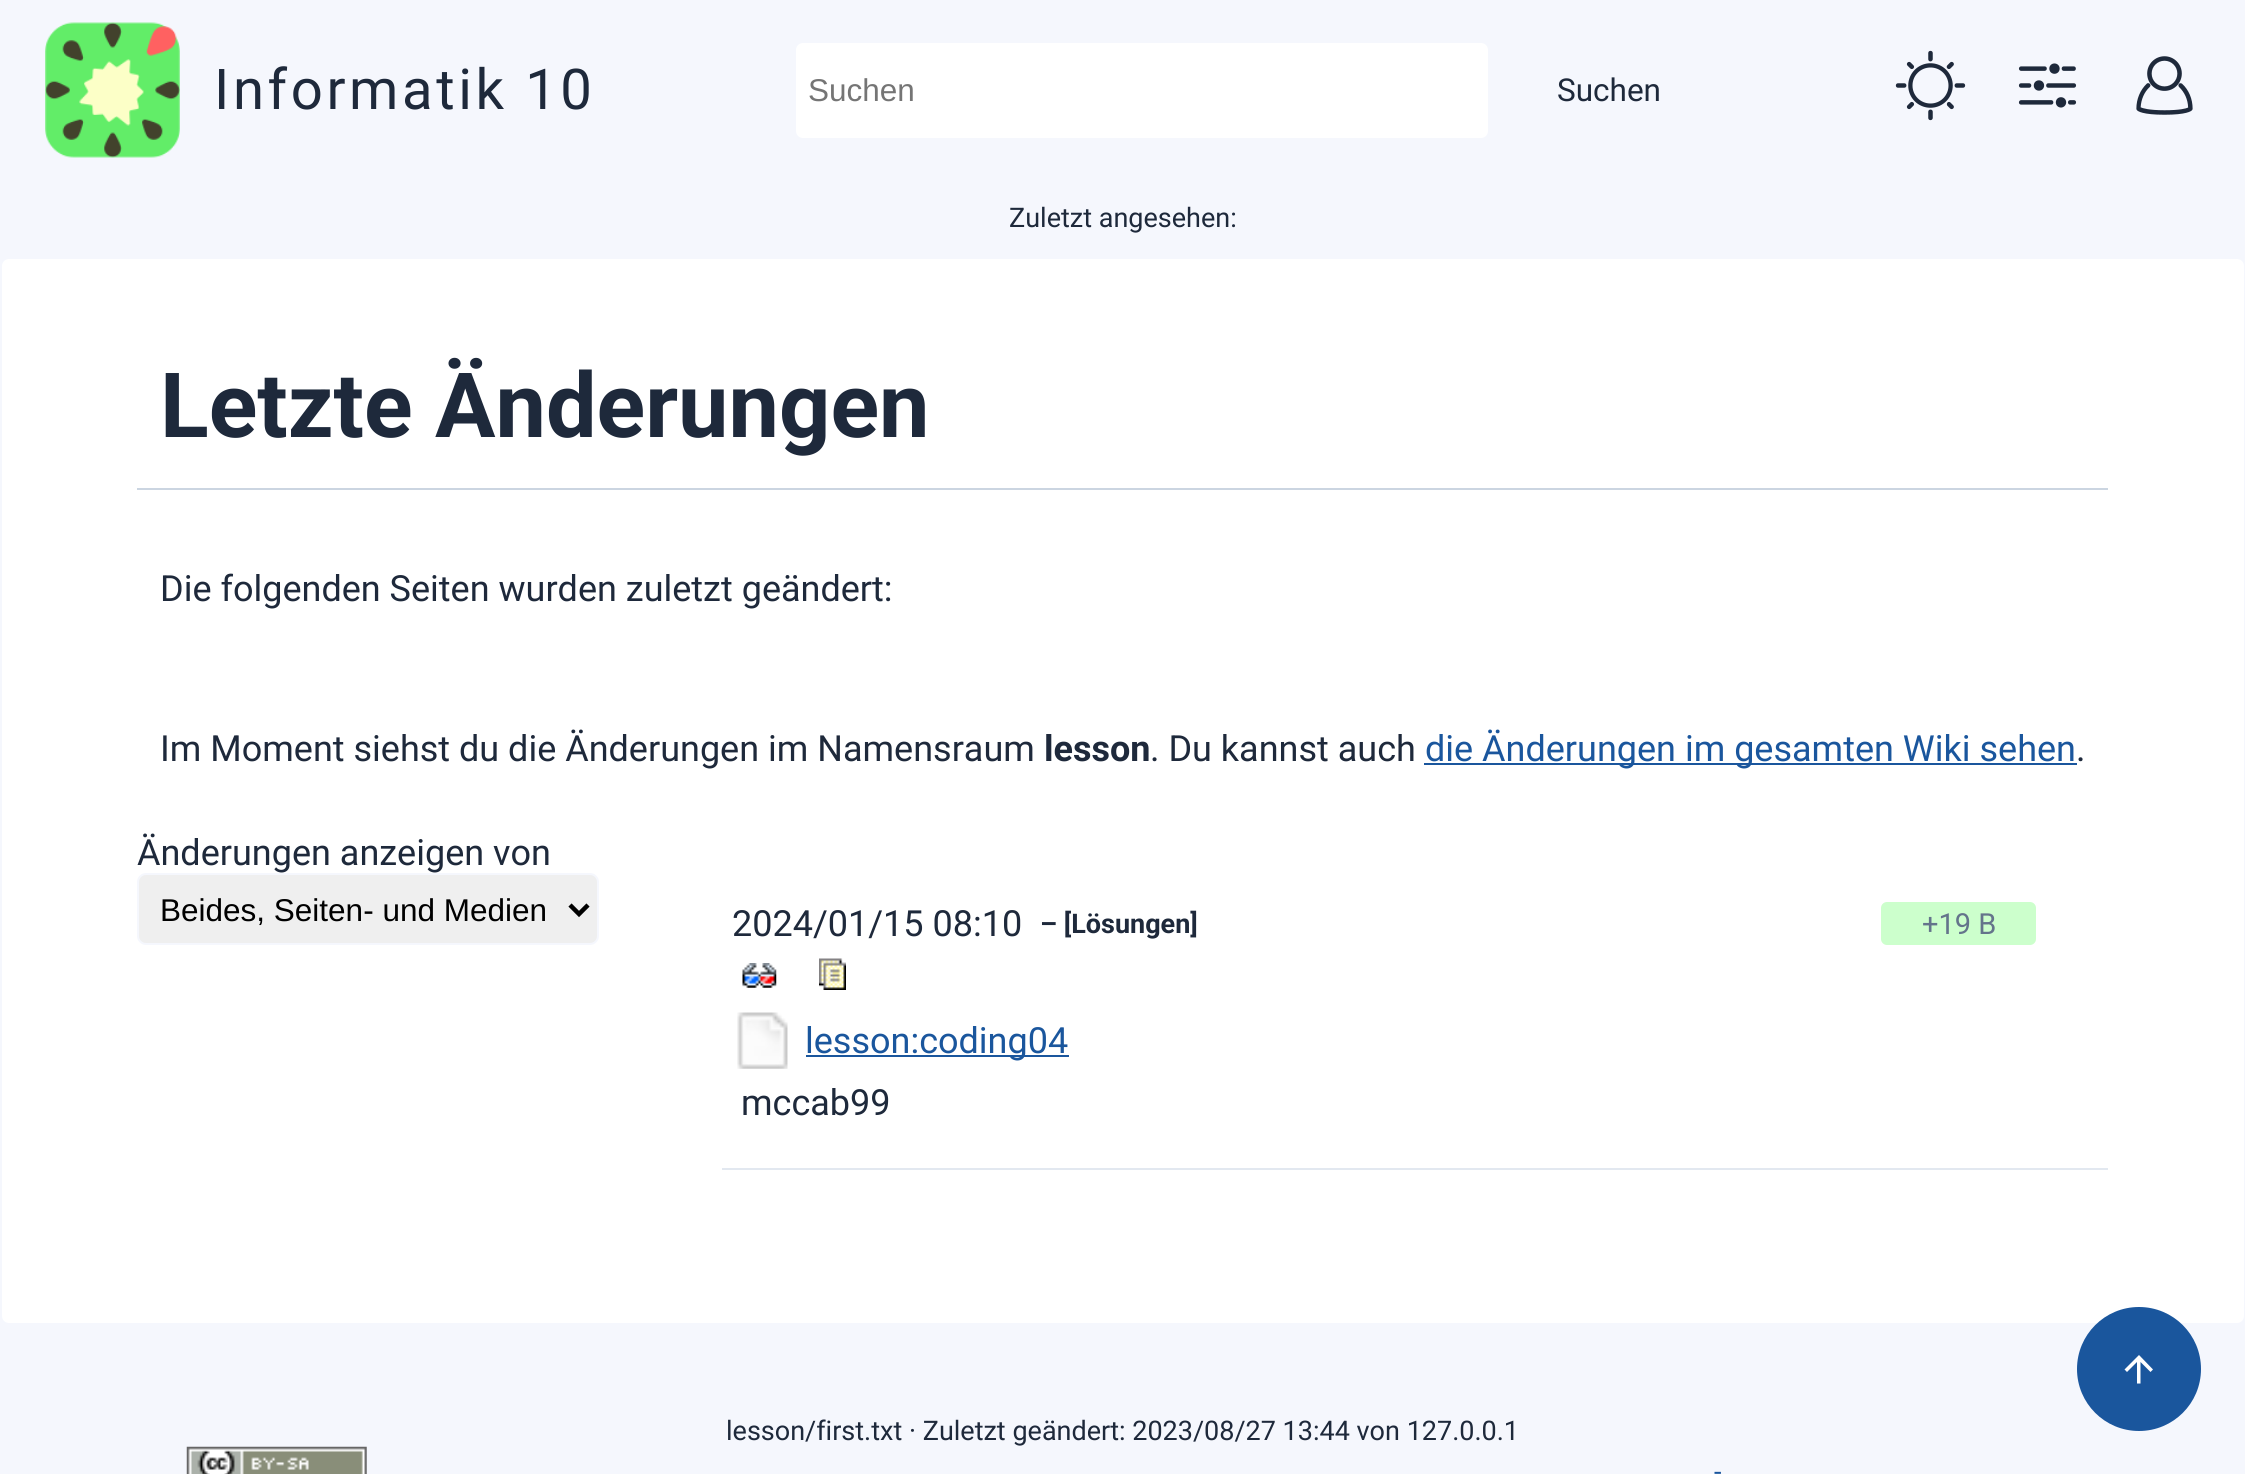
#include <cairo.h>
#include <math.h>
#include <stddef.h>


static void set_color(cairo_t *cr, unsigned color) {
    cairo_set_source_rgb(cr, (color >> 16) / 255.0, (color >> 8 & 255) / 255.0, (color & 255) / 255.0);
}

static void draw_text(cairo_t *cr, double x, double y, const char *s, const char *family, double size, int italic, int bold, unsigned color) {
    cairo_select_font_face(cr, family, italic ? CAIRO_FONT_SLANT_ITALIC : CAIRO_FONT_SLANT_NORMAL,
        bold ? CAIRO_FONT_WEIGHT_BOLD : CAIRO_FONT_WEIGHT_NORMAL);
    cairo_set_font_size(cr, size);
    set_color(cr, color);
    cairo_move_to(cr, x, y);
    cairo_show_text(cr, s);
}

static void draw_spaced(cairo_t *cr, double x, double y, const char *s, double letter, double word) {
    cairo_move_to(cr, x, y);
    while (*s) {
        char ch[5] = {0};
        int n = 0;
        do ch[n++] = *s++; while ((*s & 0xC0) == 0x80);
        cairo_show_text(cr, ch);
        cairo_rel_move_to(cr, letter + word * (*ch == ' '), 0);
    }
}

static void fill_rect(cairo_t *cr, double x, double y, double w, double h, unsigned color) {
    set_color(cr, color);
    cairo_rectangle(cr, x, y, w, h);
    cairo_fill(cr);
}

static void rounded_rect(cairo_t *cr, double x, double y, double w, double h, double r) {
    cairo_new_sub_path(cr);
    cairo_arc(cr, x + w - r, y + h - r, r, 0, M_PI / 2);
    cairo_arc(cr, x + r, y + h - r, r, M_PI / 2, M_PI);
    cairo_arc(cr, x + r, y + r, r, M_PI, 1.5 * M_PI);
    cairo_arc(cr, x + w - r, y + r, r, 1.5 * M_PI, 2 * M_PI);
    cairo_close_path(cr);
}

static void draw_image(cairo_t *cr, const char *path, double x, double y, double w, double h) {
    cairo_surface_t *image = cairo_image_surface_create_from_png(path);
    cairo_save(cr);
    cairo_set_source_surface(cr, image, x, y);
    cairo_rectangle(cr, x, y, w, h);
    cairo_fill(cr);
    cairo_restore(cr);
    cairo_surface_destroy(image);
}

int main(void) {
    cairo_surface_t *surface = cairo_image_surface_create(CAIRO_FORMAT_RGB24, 2245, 1474);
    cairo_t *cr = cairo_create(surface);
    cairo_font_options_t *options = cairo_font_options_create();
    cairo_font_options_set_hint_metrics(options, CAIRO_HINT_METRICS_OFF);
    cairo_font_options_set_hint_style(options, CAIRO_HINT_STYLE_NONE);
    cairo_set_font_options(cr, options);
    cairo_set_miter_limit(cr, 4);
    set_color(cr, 0xF5F7FD);
    cairo_paint(cr);
    draw_image(cr, "assets/img1.png", 45, 22, 135, 136);
    cairo_select_font_face(cr, "Roboto", CAIRO_FONT_SLANT_NORMAL, CAIRO_FONT_WEIGHT_NORMAL);
    cairo_set_font_size(cr, 56.25);
    set_color(cr, 0x1E293B);
    draw_spaced(cr, 214, 109, "Informatik 10", 3.6, 0);
    set_color(cr, 0xFFFFFF);
    rounded_rect(cr, 795, 42, 694, 97, 8);
    cairo_fill_preserve(cr);
    set_color(cr, 0xF5F7FD);
    cairo_stroke(cr);
    draw_text(cr, 808, 101, "Suchen", "Liberation Sans", 31.5, 0, 0, 0x757575);
    draw_text(cr, 1557, 101, "Suchen", "Roboto", 31.5, 0, 0, 0x1E293B);
    draw_image(cr, "assets/img2.png", 1895, 50, 71, 71);
    draw_image(cr, "assets/img3.png", 2018, 63, 59, 45);
    draw_image(cr, "assets/img4.png", 2136, 56, 57, 59);
    draw_text(cr, 1009, 227, "Zuletzt angesehen:", "Roboto", 27, 0, 0, 0x1E293B);
    set_color(cr, 0xFFFFFF);
    rounded_rect(cr, 1, 258, 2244, 1066, 8);
    cairo_fill_preserve(cr);
    set_color(cr, 0xF5F7FD);
    cairo_stroke(cr);
    fill_rect(cr, 137, 488, 1971, 2, 0xCBD5E1);
    draw_text(cr, 160, 437, "Letzte Änderungen", "Roboto", 90, 0, 1, 0x1E293B);
    draw_text(cr, 160, 601, "Die folgenden Seiten wurden zuletzt geändert:", "Roboto", 36, 0, 0, 0x1E293B);
    draw_text(cr, 160, 761, "Im Moment siehst du die Änderungen im Namensraum", "Roboto", 36, 0, 0, 0x1E293B);
    draw_text(cr, 1044, 761, "lesson", "Roboto", 36, 0, 1, 0x1E293B);
    draw_text(cr, 1150, 761, ". Du kannst auch", "Roboto", 36, 0, 0, 0x1E293B);
    fill_rect(cr, 1424, 763, 653, 2, 0x1A569D);
    draw_text(cr, 1425, 761, "die Änderungen im gesamten Wiki sehen", "Roboto", 36, 0, 0, 0x1A569D);
    draw_text(cr, 2076, 761, ".", "Roboto", 36, 0, 0, 0x1E293B);
    draw_text(cr, 137, 865, "Änderungen anzeigen von", "Roboto", 36, 0, 0, 0x1E293B);
    set_color(cr, 0xEFEFEF);
    rounded_rect(cr, 138, 874, 460, 70, 8);
    cairo_fill_preserve(cr);
    set_color(cr, 0xF5F7FD);
    cairo_stroke(cr);
    cairo_new_path(cr);
    cairo_move_to(cr, 570, 905);
    cairo_line_to(cr, 579, 914);
    cairo_line_to(cr, 588, 905);
    set_color(cr, 0x000000);
    cairo_set_line_width(cr, 4.5);
    cairo_stroke(cr);
    draw_text(cr, 160, 921, "Beides, Seiten- und Medien", "Liberation Sans", 31.5, 0, 0, 0x000000);
    fill_rect(cr, 722, 1168, 1386, 2, 0xE2E8F0);
    draw_text(cr, 732, 936, "2024/01/15 08:10", "Roboto", 36, 0, 0, 0x1E293B);
    draw_text(cr, 1040, 933, "– [Lösungen]", "Roboto", 27, 0, 1, 0x1E293B);
    set_color(cr, 0xCCFFCC);
    rounded_rect(cr, 1881, 902, 155, 43, 6);
    cairo_fill(cr);
    draw_text(cr, 1922, 934, "+19 B", "Roboto", 29, 0, 0, 0x64748B);
    draw_image(cr, "assets/img5.png", 742, 963, 35, 25);
    draw_image(cr, "assets/img6.png", 819, 958, 27, 32);
    draw_image(cr, "assets/img7.png", 737, 1012, 51, 57);
    fill_rect(cr, 806, 1055, 263, 2, 0x1A569D);
    draw_text(cr, 805, 1053, "lesson:coding04", "Roboto", 36, 0, 0, 0x1A569D);
    draw_text(cr, 741, 1115, "mccab99", "Roboto", 36, 0, 0, 0x1E293B);
    set_color(cr, 0x1A569D);
    cairo_new_path(cr);
    cairo_arc(cr, 2139, 1369, 62, 0, 2 * M_PI);
    cairo_fill(cr);
    set_color(cr, 0xFFFFFF);
    cairo_new_path(cr);
    cairo_move_to(cr, 2140.5, 1383.5);
    cairo_line_to(cr, 2137, 1383.5);
    cairo_line_to(cr, 2137, 1362);
    cairo_line_to(cr, 2127, 1372);
    cairo_line_to(cr, 2124.5, 1369.5);
    cairo_line_to(cr, 2139, 1355);
    cairo_line_to(cr, 2153, 1369.5);
    cairo_line_to(cr, 2150.5, 1372);
    cairo_line_to(cr, 2140.5, 1362);
    cairo_close_path(cr);
    cairo_fill(cr);
    draw_text(cr, 726, 1440, "lesson/first.txt · Zuletzt geändert: 2023/08/27 13:44 von 127.0.0.1", "Roboto", 27, 0, 0, 0x1E293B);
    draw_image(cr, "assets/img8.png", 186, 1446, 181, 28);
    draw_text(cr, 1714, 1481, "-", "Roboto", 27, 0, 0, 0x1A569D);
    cairo_surface_write_to_png(surface, "output.png");
    cairo_font_options_destroy(options);
    cairo_destroy(cr);
    cairo_surface_destroy(surface);
    return 0;
}
